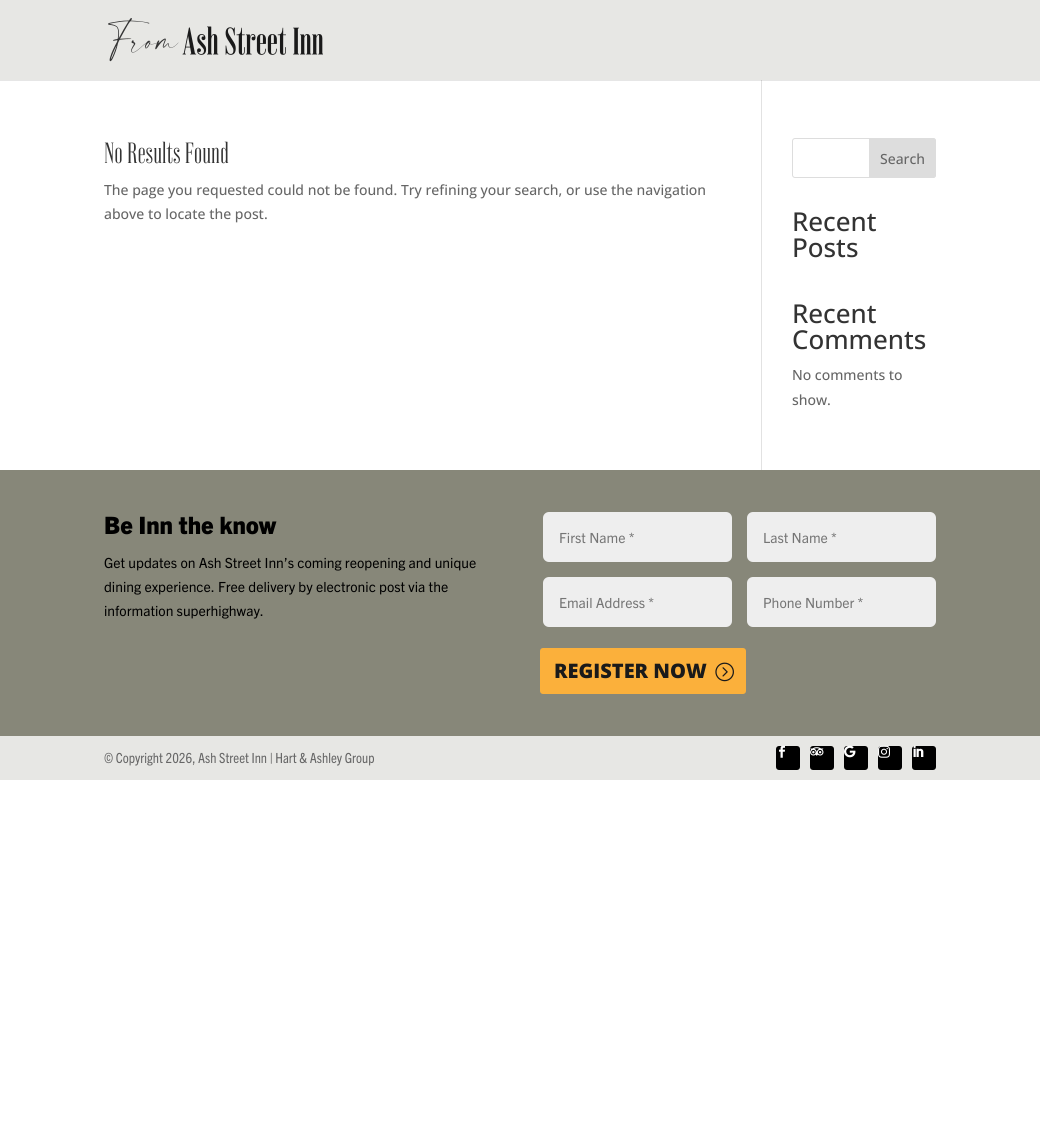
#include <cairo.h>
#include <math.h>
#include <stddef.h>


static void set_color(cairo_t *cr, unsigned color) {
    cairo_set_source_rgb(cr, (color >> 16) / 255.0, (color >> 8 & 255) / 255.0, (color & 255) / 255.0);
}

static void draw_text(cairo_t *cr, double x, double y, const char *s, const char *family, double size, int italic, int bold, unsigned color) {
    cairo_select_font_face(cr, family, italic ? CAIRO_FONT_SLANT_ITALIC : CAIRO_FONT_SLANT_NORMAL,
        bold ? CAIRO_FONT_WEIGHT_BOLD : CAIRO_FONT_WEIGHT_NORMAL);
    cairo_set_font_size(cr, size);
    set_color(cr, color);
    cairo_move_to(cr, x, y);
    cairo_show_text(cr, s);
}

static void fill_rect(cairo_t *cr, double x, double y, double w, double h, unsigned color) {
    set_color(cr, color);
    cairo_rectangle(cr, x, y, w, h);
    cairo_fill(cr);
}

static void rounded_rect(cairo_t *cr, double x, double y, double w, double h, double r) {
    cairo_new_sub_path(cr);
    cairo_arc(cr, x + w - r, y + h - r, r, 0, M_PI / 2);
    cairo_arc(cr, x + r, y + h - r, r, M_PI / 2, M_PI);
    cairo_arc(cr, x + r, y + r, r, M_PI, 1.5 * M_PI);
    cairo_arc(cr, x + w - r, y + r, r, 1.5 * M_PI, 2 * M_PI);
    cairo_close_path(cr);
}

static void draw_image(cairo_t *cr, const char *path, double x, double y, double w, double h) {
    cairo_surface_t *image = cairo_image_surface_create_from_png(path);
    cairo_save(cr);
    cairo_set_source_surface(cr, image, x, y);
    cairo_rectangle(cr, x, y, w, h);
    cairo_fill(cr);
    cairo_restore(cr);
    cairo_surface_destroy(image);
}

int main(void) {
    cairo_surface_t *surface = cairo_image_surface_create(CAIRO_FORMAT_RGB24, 1040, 1122);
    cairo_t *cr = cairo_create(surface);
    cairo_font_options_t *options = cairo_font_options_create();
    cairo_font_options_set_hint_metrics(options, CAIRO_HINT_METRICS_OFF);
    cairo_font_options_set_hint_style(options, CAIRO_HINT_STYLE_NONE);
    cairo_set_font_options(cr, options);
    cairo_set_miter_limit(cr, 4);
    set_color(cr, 0xFFFFFF);
    cairo_paint(cr);
    fill_rect(cr, 0, 80, 1040, 1, 0xE6E6E6);
    fill_rect(cr, 0, 0, 1040, 80, 0xE7E7E4);
    draw_image(cr, "assets/img1.png", 108, 18, 215, 44);
    fill_rect(cr, 761, 80, 1, 390, 0xE2E2E2);
    fill_rect(cr, 761, 80, 1, 1, 0xCBCBCB);
    draw_text(cr, 104, 163, "No Results Found", "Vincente", 30, 0, 0, 0x333333);
    draw_text(cr, 104, 195, "The page you requested could not be found. Try refining your search, or use the navigation", "Open Sans Medium", 14, 0, 0, 0x666666);
    draw_text(cr, 104, 219, "above to locate the post.", "Open Sans Medium", 14, 0, 0, 0x666666);
    rounded_rect(cr, 792.5, 138.5, 143, 39, 2.5);
    set_color(cr, 0xDDDDDD);
    cairo_set_line_width(cr, 1);
    cairo_stroke(cr);
    cairo_new_path(cr);
    cairo_move_to(cr, 869.5, 138.5);
    cairo_line_to(cr, 933, 138.5);
    cairo_curve_to(cr, 934.5, 138.5, 935.5, 139.5, 935.5, 141);
    cairo_line_to(cr, 935.5, 175);
    cairo_curve_to(cr, 935.5, 176.5, 934.5, 177.5, 933, 177.5);
    cairo_line_to(cr, 869.5, 177.5);
    cairo_close_path(cr);
    cairo_fill_preserve(cr);
    cairo_stroke(cr);
    draw_text(cr, 880, 164, "Search", "Open Sans Medium", 14, 0, 0, 0x666666);
    draw_text(cr, 792, 231, "Recent", "Open Sans Medium", 26, 0, 0, 0x333333);
    draw_text(cr, 792, 257, "Posts", "Open Sans Medium", 26, 0, 0, 0x333333);
    draw_text(cr, 792, 323, "Recent", "Open Sans Medium", 26, 0, 0, 0x333333);
    draw_text(cr, 792, 349, "Comments", "Open Sans Medium", 26, 0, 0, 0x333333);
    draw_text(cr, 792, 380, "No comments to", "Open Sans Medium", 14, 0, 0, 0x666666);
    draw_text(cr, 792, 405, "show.", "Open Sans Medium", 14, 0, 0, 0x666666);
    fill_rect(cr, 0, 470, 1040, 266, 0x878779);
    draw_text(cr, 104, 534, "Be Inn the know", "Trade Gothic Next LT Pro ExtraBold", 24, 0, 0, 0x000000);
    draw_text(cr, 104, 568, "Get updates on Ash Street Inn’s coming reopening and unique", "Trade Gothic Next LT Pro", 14, 0, 0, 0x000000);
    draw_text(cr, 104, 592, "dining experience. Free delivery by electronic post via the", "Trade Gothic Next LT Pro", 14, 0, 0, 0x000000);
    draw_text(cr, 104, 616, "information superhighway.", "Trade Gothic Next LT Pro", 14, 0, 0, 0x000000);
    set_color(cr, 0xEEEEEE);
    rounded_rect(cr, 543, 512, 189, 50, 6);
    cairo_fill(cr);
    draw_text(cr, 559, 543, "First Name *", "Trade Gothic Next LT Pro", 14, 0, 0, 0x757575);
    set_color(cr, 0xEEEEEE);
    rounded_rect(cr, 747, 512, 189, 50, 6);
    cairo_fill(cr);
    draw_text(cr, 763, 543, "Last Name *", "Trade Gothic Next LT Pro", 14, 0, 0, 0x757575);
    set_color(cr, 0xEEEEEE);
    rounded_rect(cr, 543, 577, 189, 50, 6);
    cairo_fill(cr);
    draw_text(cr, 559, 608, "Email Address *", "Trade Gothic Next LT Pro", 14, 0, 0, 0x757575);
    set_color(cr, 0xEEEEEE);
    rounded_rect(cr, 747, 577, 189, 50, 6);
    cairo_fill(cr);
    draw_text(cr, 763, 608, "Phone Number *", "Trade Gothic Next LT Pro", 14, 0, 0, 0x757575);
    set_color(cr, 0xFBB03B);
    rounded_rect(cr, 540, 648, 206, 46, 3);
    cairo_fill(cr);
    draw_text(cr, 554, 678, "REGISTER NOW", "Open Sans ExtraBold", 20, 0, 0, 0x1A1A1A);
    draw_image(cr, "assets/img2.png", 715, 662, 19, 20);
    fill_rect(cr, 0, 736, 1040, 44, 0xE7E7E4);
    draw_text(cr, 104, 763, "© Copyright 2026, Ash Street Inn | Hart & Ashley Group", "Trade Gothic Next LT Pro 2", 14, 0, 0, 0x666666);
    set_color(cr, 0x000000);
    rounded_rect(cr, 776, 746, 24, 24, 3);
    cairo_fill(cr);
    draw_image(cr, "assets/img3.png", 779, 745, 6, 13);
    rounded_rect(cr, 810, 746, 24, 24, 3);
    cairo_fill(cr);
    draw_image(cr, "assets/img4.png", 810, 747, 14, 9);
    rounded_rect(cr, 844, 746, 24, 24, 3);
    cairo_fill(cr);
    draw_image(cr, "assets/img5.png", 844, 745, 12, 13);
    rounded_rect(cr, 878, 746, 24, 24, 3);
    cairo_fill(cr);
    draw_image(cr, "assets/img6.png", 878, 745, 12, 13);
    rounded_rect(cr, 912, 746, 24, 24, 3);
    cairo_fill(cr);
    draw_image(cr, "assets/img7.png", 913, 745, 11, 12);
    cairo_surface_write_to_png(surface, "output.png");
    cairo_font_options_destroy(options);
    cairo_destroy(cr);
    cairo_surface_destroy(surface);
    return 0;
}
